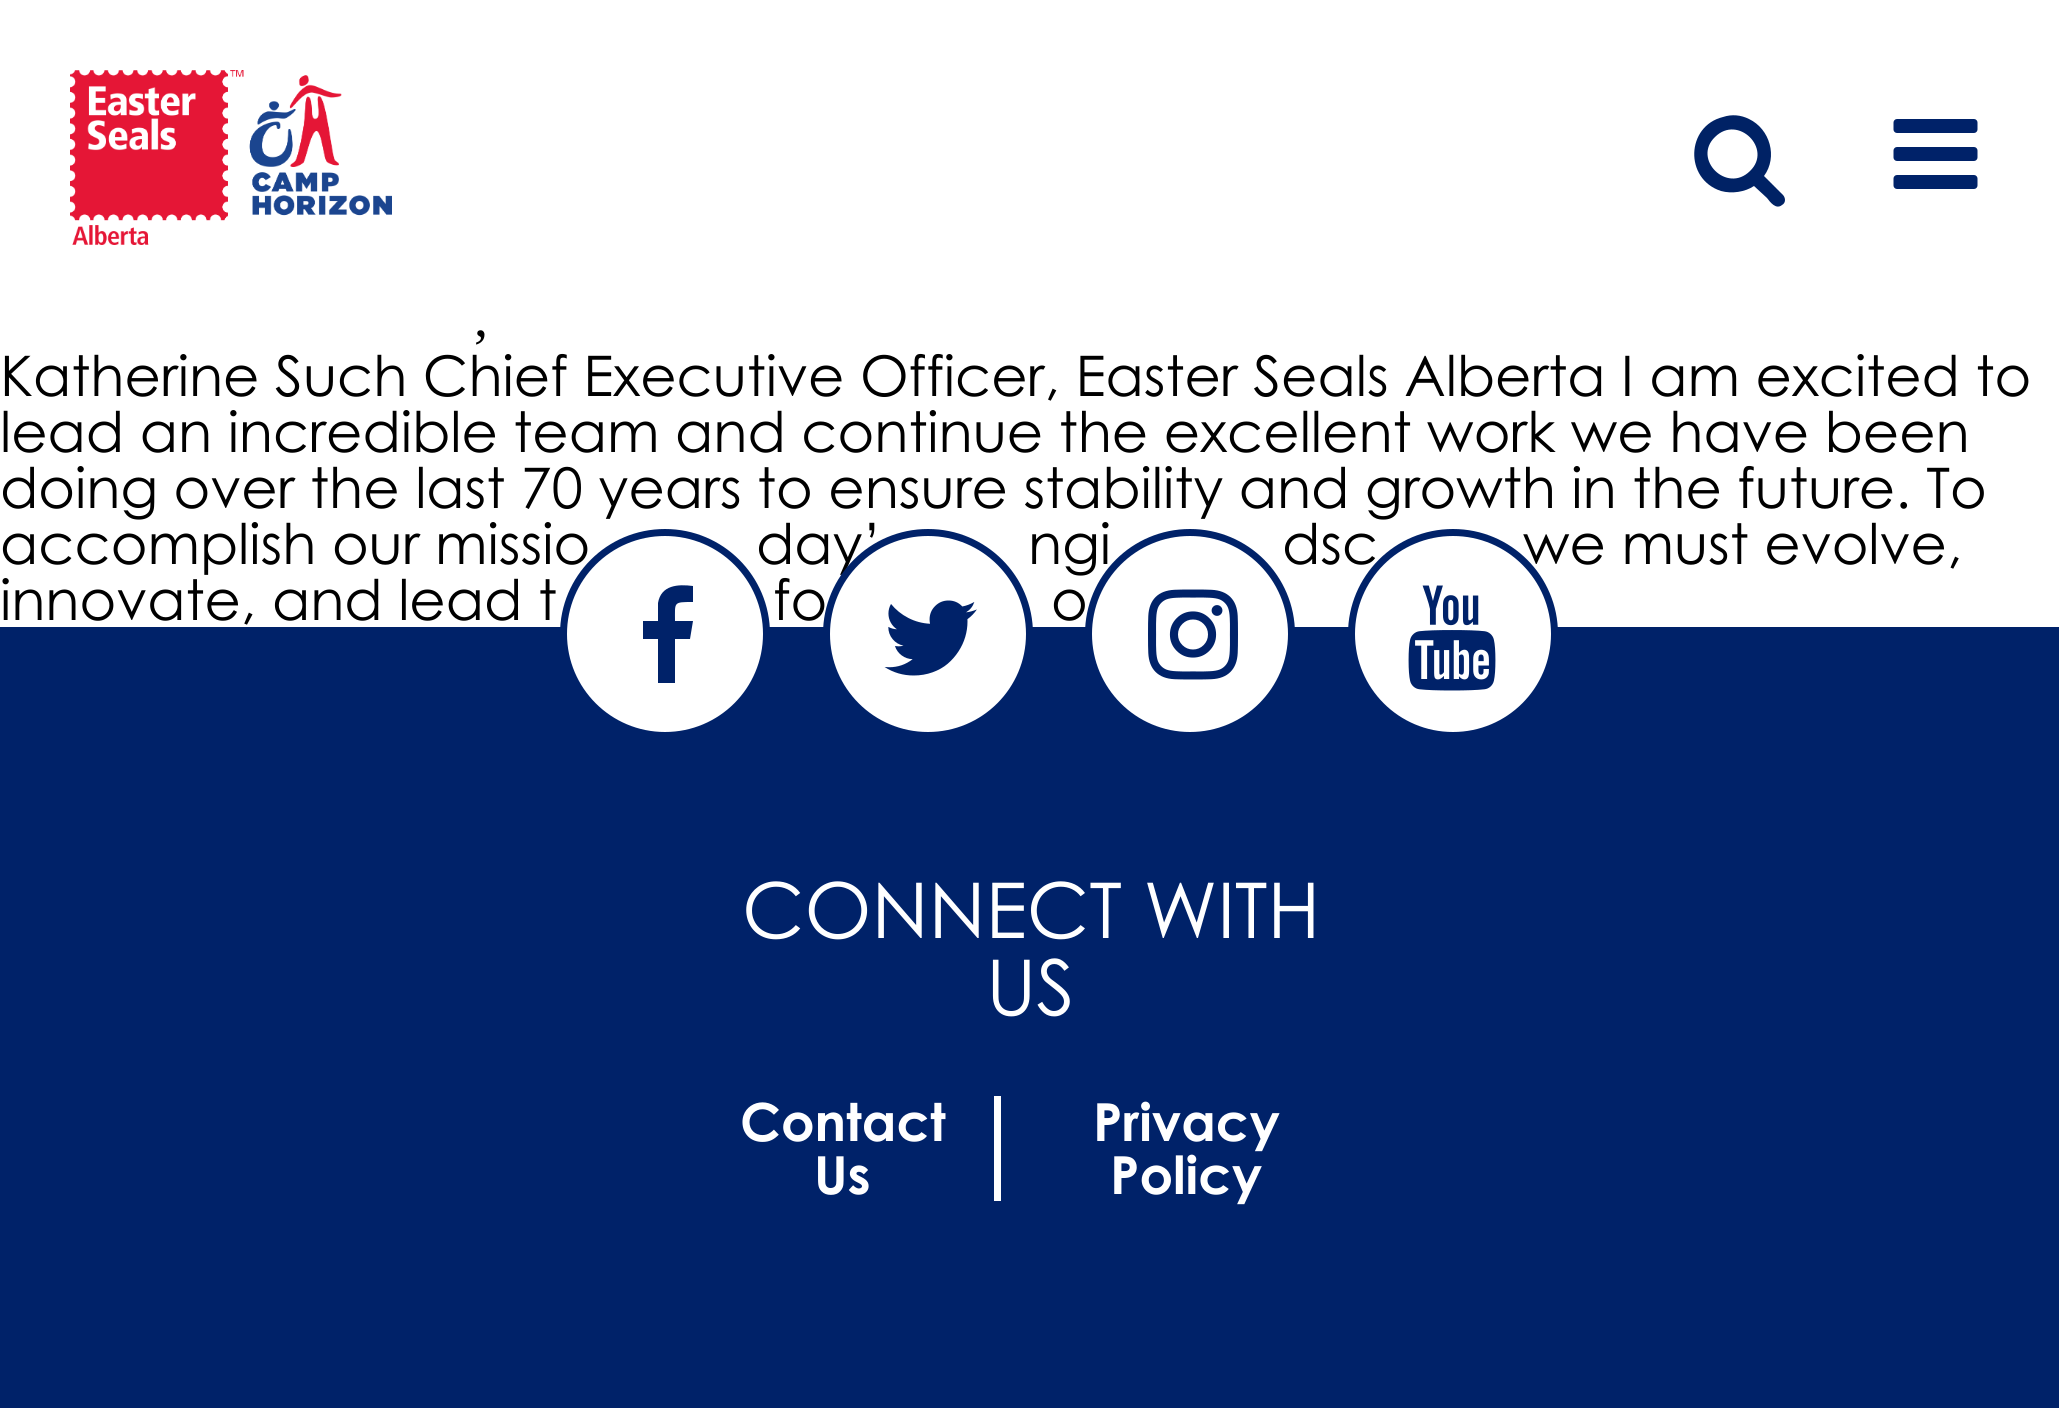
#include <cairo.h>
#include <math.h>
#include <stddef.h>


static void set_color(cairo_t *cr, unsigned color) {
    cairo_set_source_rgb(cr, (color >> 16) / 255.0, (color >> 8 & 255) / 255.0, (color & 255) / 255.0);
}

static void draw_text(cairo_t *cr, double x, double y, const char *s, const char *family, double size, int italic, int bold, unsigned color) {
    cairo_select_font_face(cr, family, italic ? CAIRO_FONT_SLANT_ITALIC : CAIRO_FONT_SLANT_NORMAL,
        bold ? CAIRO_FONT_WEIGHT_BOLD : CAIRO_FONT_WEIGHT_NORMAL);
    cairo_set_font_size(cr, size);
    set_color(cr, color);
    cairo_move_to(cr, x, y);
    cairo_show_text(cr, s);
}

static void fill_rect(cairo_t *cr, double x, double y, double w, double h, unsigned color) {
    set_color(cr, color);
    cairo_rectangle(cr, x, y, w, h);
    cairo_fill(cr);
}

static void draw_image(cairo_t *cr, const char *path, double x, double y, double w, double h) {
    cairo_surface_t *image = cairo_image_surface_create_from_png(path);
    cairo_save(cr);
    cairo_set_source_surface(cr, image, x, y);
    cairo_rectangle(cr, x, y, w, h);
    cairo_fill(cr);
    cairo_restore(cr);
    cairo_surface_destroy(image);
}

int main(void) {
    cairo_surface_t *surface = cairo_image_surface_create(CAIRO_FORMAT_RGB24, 2059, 1408);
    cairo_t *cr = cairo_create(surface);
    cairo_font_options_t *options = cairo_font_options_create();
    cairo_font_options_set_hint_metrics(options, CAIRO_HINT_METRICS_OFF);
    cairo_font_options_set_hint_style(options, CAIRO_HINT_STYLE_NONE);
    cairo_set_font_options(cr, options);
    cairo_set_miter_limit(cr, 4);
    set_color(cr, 0xFFFFFF);
    cairo_paint(cr);
    draw_image(cr, "assets/img1.png", 70, 70, 322, 175);
    set_color(cr, 0x002265);
    cairo_new_path(cr);
    cairo_move_to(cr, 1750, 171);
    cairo_curve_to(cr, 1773, 149, 1738, 114, 1715, 137);
    cairo_curve_to(cr, 1692, 159, 1727, 194, 1750, 171);
    cairo_close_path(cr);
    cairo_move_to(cr, 1785, 200);
    cairo_curve_to(cr, 1785, 202, 1784, 204, 1782, 205);
    cairo_curve_to(cr, 1776, 210, 1770, 202, 1767, 198);
    cairo_line_to(cr, 1754, 186);
    cairo_curve_to(cr, 1745, 192, 1732, 194, 1721, 191);
    cairo_curve_to(cr, 1684, 179, 1686, 126, 1723, 117);
    cairo_curve_to(cr, 1732, 114, 1741, 115, 1749, 119);
    cairo_curve_to(cr, 1770, 129, 1778, 157, 1764, 176);
    cairo_line_to(cr, 1783, 195);
    cairo_curve_to(cr, 1784, 196, 1785, 198, 1785, 200);
    cairo_close_path(cr);
    cairo_fill(cr);
    draw_image(cr, "assets/img2.png", 1893, 119, 85, 70);
    draw_text(cr, 474, 336, ",", "Liberation Serif", 56, 0, 0, 0x000000);
    draw_text(cr, 0, 396, "Katherine Such Chief Executive Officer, Easter Seals Alberta I am excited to", "Century Gothic", 56, 0, 0, 0x000000);
    draw_text(cr, 0, 452, "lead an incredible team and continue the excellent work we have been", "Century Gothic", 56, 0, 0, 0x000000);
    draw_text(cr, 0, 508, "doing over the last 70 years to ensure stability and growth in the future. To", "Century Gothic", 56, 0, 0, 0x000000);
    draw_text(cr, 0, 564, "accomplish our missio", "Century Gothic", 56, 0, 0, 0x000000);
    draw_text(cr, 756, 564, "day’", "Century Gothic", 56, 0, 0, 0x000000);
    draw_text(cr, 1028, 564, "ngi", "Century Gothic", 56, 0, 0, 0x000000);
    draw_text(cr, 1282, 564, "dsc", "Century Gothic", 56, 0, 0, 0x000000);
    draw_text(cr, 1523, 564, "we must evolve,", "Century Gothic", 56, 0, 0, 0x000000);
    draw_text(cr, 0, 620, "innovate, and lead t", "Century Gothic", 56, 0, 0, 0x000000);
    draw_text(cr, 773, 620, "fo", "Century Gothic", 56, 0, 0, 0x000000);
    draw_text(cr, 1051, 620, "o", "Century Gothic", 56, 0, 0, 0x000000);
    fill_rect(cr, 0, 627, 2059, 781, 0x002269);
    set_color(cr, 0xFFFFFF);
    cairo_new_path(cr);
    cairo_arc(cr, 665, 634, 101.5, 0, 2 * M_PI);
    cairo_fill_preserve(cr);
    set_color(cr, 0x002269);
    cairo_set_line_width(cr, 7);
    cairo_stroke(cr);
    cairo_new_path(cr);
    cairo_move_to(cr, 693, 586);
    cairo_line_to(cr, 693, 602);
    cairo_curve_to(cr, 673, 602, 675, 602, 675, 621);
    cairo_line_to(cr, 693, 621);
    cairo_line_to(cr, 690, 639);
    cairo_line_to(cr, 675, 639);
    cairo_line_to(cr, 675, 683);
    cairo_line_to(cr, 658, 683);
    cairo_line_to(cr, 658, 639);
    cairo_line_to(cr, 643, 639);
    cairo_line_to(cr, 643, 621);
    cairo_line_to(cr, 658, 621);
    cairo_line_to(cr, 658, 603);
    cairo_curve_to(cr, 661, 585, 678, 584, 693, 586);
    cairo_close_path(cr);
    cairo_fill(cr);
    set_color(cr, 0xFFFFFF);
    cairo_arc(cr, 928, 634, 101.5, 0, 2 * M_PI);
    cairo_fill_preserve(cr);
    set_color(cr, 0x002269);
    cairo_stroke(cr);
    draw_image(cr, "assets/img3.png", 884, 600, 93, 76);
    set_color(cr, 0xFFFFFF);
    cairo_arc(cr, 1190, 634, 101.5, 0, 2 * M_PI);
    cairo_fill_preserve(cr);
    set_color(cr, 0x002269);
    cairo_stroke(cr);
    draw_image(cr, "assets/img4.png", 1148, 589, 90, 91);
    set_color(cr, 0xFFFFFF);
    cairo_arc(cr, 1453, 634, 101.5, 0, 2 * M_PI);
    cairo_fill_preserve(cr);
    set_color(cr, 0x002269);
    cairo_stroke(cr);
    draw_image(cr, "assets/img5.png", 1408, 585, 88, 106);
    draw_text(cr, 742, 938, "CONNECT WITH", "Century Gothic", 77, 0, 0, 0xFFFFFF);
    draw_text(cr, 986, 1015, "US", "Century Gothic", 77, 0, 0, 0xFFFFFF);
    fill_rect(cr, 994, 1096, 7, 105, 0xFFFFFF);
    draw_text(cr, 740, 1141, "Contact", "Century Gothic", 52.5, 0, 1, 0xFFFFFF);
    draw_text(cr, 814, 1194, "Us", "Century Gothic", 52.5, 0, 1, 0xFFFFFF);
    draw_text(cr, 1093, 1141, "Privacy", "Century Gothic", 52.5, 0, 1, 0xFFFFFF);
    draw_text(cr, 1110, 1194, "Policy", "Century Gothic", 52.5, 0, 1, 0xFFFFFF);
    cairo_surface_write_to_png(surface, "output.png");
    cairo_font_options_destroy(options);
    cairo_destroy(cr);
    cairo_surface_destroy(surface);
    return 0;
}
